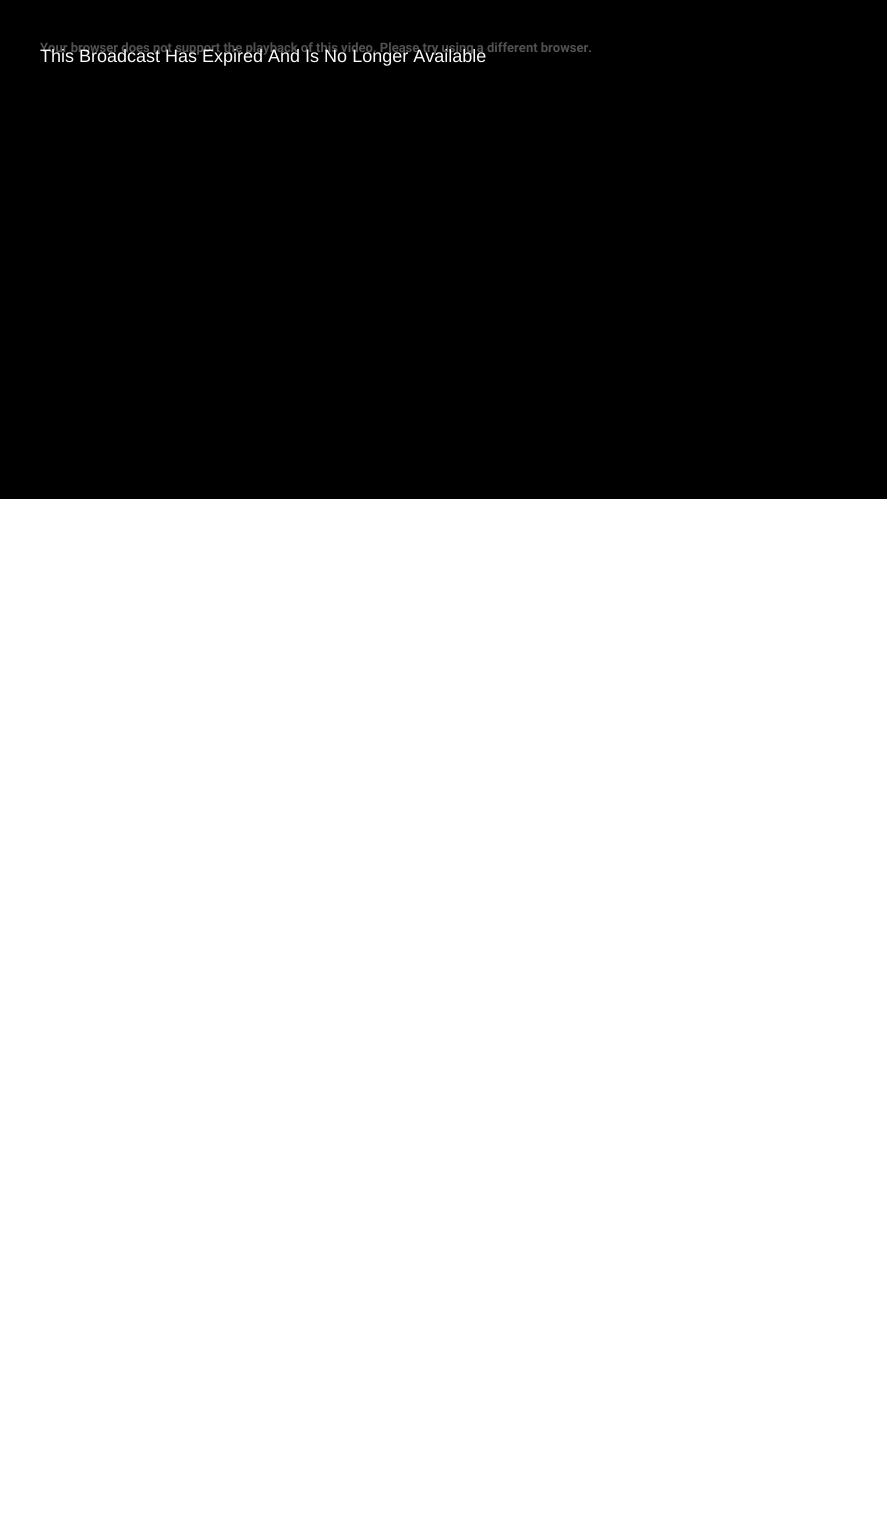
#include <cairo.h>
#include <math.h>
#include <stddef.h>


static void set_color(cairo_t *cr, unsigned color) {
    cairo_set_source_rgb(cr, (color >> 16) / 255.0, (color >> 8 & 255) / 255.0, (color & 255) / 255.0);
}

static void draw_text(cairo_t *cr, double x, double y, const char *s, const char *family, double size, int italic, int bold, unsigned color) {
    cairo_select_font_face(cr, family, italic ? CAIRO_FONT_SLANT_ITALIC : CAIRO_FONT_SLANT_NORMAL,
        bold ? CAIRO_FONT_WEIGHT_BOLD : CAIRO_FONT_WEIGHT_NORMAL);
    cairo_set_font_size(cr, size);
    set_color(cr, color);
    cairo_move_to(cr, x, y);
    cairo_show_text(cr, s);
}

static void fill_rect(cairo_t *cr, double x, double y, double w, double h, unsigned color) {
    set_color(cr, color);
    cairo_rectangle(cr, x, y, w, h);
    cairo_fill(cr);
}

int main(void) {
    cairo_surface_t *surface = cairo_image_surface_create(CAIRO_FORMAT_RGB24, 887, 1540);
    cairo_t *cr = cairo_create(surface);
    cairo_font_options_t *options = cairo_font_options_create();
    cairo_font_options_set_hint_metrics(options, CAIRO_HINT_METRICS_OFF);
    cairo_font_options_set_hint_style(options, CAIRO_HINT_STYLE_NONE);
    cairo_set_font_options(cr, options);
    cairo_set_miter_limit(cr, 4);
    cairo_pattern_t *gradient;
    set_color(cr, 0xFFFFFF);
    cairo_paint(cr);
    fill_rect(cr, 0, 0, 887, 499, 0x000000);
    draw_text(cr, 40, 52, "Your browser does not support the playback of this video. Please try using a different browser.", "Roboto", 13, 0, 1, 0xDDDDDD);
    gradient = cairo_pattern_create_linear(444, 0, 444, 112);
    cairo_pattern_add_color_stop_rgba(gradient, 0, 0, 0, 0, 0.8);
    cairo_pattern_add_color_stop_rgba(gradient, 0.5, 0, 0, 0, 0.6);
    cairo_pattern_add_color_stop_rgba(gradient, 1, 0, 0, 0, 0);
    cairo_set_source(cr, gradient);
    cairo_pattern_destroy(gradient);
    cairo_rectangle(cr, 40, 42, 552, 13);
    cairo_fill(cr);
    draw_text(cr, 40, 62, "This Broadcast Has Expired And Is No Longer Available", "Liberation Sans", 18, 0, 0, 0xFAFAFA);
    cairo_surface_write_to_png(surface, "output.png");
    cairo_font_options_destroy(options);
    cairo_destroy(cr);
    cairo_surface_destroy(surface);
    return 0;
}
